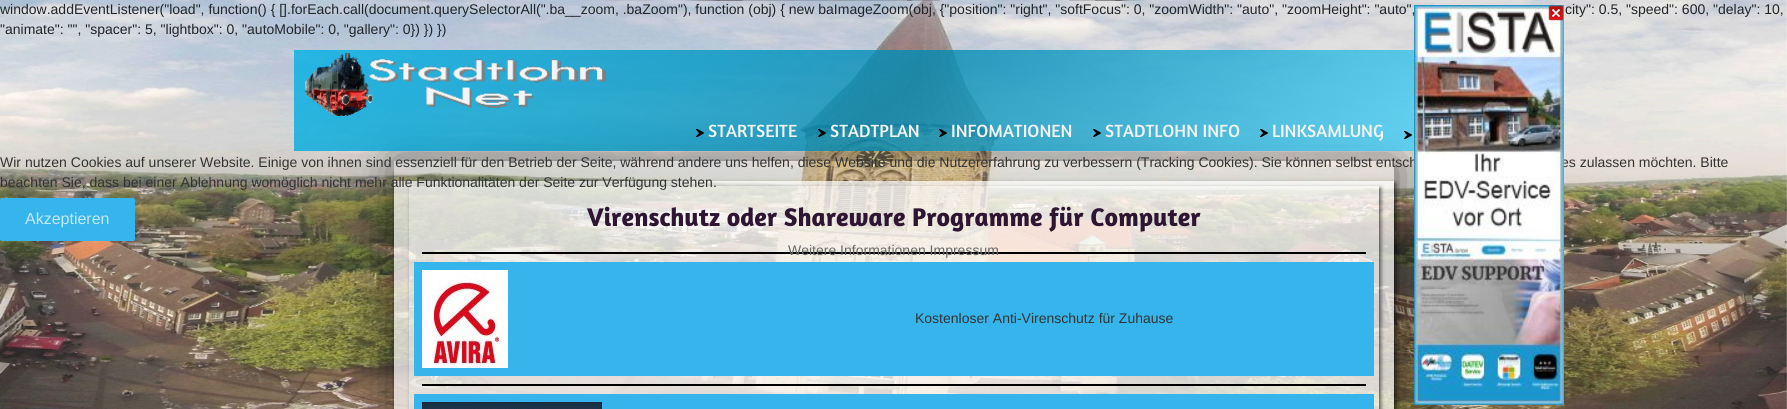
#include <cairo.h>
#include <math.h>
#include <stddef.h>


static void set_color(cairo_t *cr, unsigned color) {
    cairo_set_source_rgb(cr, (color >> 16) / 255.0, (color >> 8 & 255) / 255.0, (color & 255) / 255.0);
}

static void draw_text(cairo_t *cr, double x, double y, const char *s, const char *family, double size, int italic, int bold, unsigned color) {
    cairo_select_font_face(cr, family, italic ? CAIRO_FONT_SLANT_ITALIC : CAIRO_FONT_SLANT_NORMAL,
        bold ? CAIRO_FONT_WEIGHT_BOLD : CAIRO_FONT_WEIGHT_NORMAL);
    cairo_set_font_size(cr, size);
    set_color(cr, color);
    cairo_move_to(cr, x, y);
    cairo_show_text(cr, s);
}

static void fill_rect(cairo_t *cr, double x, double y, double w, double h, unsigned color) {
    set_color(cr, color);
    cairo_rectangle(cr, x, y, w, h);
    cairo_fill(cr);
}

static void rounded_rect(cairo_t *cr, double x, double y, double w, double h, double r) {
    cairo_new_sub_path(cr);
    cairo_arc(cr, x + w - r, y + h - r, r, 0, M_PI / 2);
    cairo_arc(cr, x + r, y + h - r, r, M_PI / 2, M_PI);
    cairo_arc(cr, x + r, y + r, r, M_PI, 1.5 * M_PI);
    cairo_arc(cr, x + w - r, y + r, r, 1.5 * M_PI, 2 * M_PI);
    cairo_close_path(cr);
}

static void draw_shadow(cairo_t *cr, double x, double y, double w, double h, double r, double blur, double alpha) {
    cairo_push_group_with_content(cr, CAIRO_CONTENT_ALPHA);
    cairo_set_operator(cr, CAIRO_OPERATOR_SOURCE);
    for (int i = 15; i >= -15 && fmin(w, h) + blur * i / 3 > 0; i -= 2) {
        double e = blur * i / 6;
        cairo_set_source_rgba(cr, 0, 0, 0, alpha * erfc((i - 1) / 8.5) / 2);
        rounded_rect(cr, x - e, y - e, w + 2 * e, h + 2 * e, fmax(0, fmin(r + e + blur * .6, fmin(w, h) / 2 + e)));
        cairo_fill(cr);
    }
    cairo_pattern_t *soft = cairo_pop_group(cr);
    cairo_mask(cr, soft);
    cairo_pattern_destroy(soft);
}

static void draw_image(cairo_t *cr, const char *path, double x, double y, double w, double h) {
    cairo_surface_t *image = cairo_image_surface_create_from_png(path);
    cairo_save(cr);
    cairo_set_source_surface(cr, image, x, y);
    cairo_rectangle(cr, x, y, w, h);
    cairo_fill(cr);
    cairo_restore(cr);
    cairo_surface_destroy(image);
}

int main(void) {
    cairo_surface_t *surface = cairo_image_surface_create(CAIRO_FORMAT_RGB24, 1787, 409);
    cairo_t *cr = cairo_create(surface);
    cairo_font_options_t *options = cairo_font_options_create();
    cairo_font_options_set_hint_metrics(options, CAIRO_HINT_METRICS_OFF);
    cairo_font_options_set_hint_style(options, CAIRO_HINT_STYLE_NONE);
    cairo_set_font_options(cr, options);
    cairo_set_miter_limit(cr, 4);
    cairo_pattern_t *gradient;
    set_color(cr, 0xFFFFFF);
    cairo_paint(cr);
    draw_image(cr, "assets/img1.png", 0, 0, 1787, 409);
    draw_text(cr, 0, 14, "window.addEventListener(\"load\", function() { [].forEach.call(document.querySelectorAll(\".ba__zoom, .baZoom\"), function (obj) { new baImageZoom(obj, {\"position\": \"right\", \"softFocus\": 0, \"zoomWidth\": \"auto\", \"zoomHeight\": \"auto\",", "Liberation Sans", 14, 0, 0, 0x212529);
    cairo_save(cr);
    cairo_set_fill_rule(cr, CAIRO_FILL_RULE_EVEN_ODD);
    cairo_new_path(cr);
    cairo_move_to(cr, 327, 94);
    cairo_line_to(cr, 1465, 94);
    cairo_line_to(cr, 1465, 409);
    cairo_line_to(cr, 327, 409);
    cairo_close_path(cr);
    cairo_move_to(cr, 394, 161);
    cairo_line_to(cr, 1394, 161);
    cairo_line_to(cr, 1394, 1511);
    cairo_line_to(cr, 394, 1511);
    cairo_close_path(cr);
    cairo_clip(cr);
    set_color(cr, 0x000000);
    draw_shadow(cr, 396, 163, 1000, 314, 0, 22.5, 0.59);
    cairo_restore(cr);
    draw_text(cr, 0, 167, "Wir nutzen Cookies auf unserer Website. Einige von ihnen sind essenziell für den Betrieb der Seite, während andere uns helfen, diese Website und die Nutzererfahrung zu verbessern (Tracking Cookies). Sie können selbst entsch", "Liberation Sans", 14, 0, 0, 0x333333);
    draw_text(cr, 1561, 167, "es zulassen möchten. Bitte", "Liberation Sans", 14, 0, 0, 0x333333);
    draw_image(cr, "assets/img2.png", 1414, 5, 150, 400);
    draw_image(cr, "assets/img3.png", 1548, 5, 16, 16);
    draw_text(cr, 1565, 14, "city\": 0.5, \"speed\": 600, \"delay\": 10,", "Liberation Sans", 14, 0, 0, 0x212529);
    draw_text(cr, 0, 34, "\"animate\": \"\", \"spacer\": 5, \"lightbox\": 0, \"autoMobile\": 0, \"gallery\": 0}) }) })", "Liberation Sans", 14, 0, 0, 0x212529);
    gradient = cairo_pattern_create_linear(569, -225, 1219, 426);
    cairo_pattern_add_color_stop_rgba(gradient, 0, 0, 0.694, 0.902, 0.8);
    cairo_pattern_add_color_stop_rgba(gradient, 0.5, 0, 0.541, 0.702, 0.8);
    cairo_pattern_add_color_stop_rgba(gradient, 1, 0.302, 0.839, 1, 0.8);
    cairo_set_source(cr, gradient);
    cairo_pattern_destroy(gradient);
    cairo_rectangle(cr, 294, 50, 1120, 101);
    cairo_fill(cr);
    draw_image(cr, "assets/img4.png", 304, 53, 302, 63);
    draw_image(cr, "assets/img5.png", 696, 129, 8, 8);
    draw_text(cr, 708, 137, "STARTSEITE", "Amaranth", 18, 0, 0, 0xF3F3F3);
    draw_image(cr, "assets/img6.png", 818, 129, 8, 8);
    draw_text(cr, 830, 137, "STADTPLAN", "Amaranth", 18, 0, 0, 0xF3F3F3);
    draw_image(cr, "assets/img7.png", 939, 129, 8, 8);
    draw_text(cr, 951, 137, "INFOMATIONEN", "Amaranth", 18, 0, 0, 0xF3F3F3);
    draw_image(cr, "assets/img8.png", 1093, 129, 8, 8);
    draw_text(cr, 1105, 137, "STADTLOHN INFO", "Amaranth", 18, 0, 0, 0xF3F3F3);
    draw_image(cr, "assets/img9.png", 1260, 129, 8, 8);
    draw_text(cr, 1272, 137, "LINKSAMLUNG", "Amaranth", 18, 0, 0, 0xF3F3F3);
    draw_image(cr, "assets/img10.png", 1404, 131, 8, 8);
    cairo_save(cr);
    cairo_set_fill_rule(cr, CAIRO_FILL_RULE_EVEN_ODD);
    cairo_new_path(cr);
    cairo_move_to(cr, 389, 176);
    cairo_line_to(cr, 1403, 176);
    cairo_line_to(cr, 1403, 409);
    cairo_line_to(cr, 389, 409);
    cairo_close_path(cr);
    cairo_move_to(cr, 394, 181);
    cairo_line_to(cr, 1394, 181);
    cairo_line_to(cr, 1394, 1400);
    cairo_line_to(cr, 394, 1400);
    cairo_close_path(cr);
    cairo_clip(cr);
    set_color(cr, 0x000000);
    draw_shadow(cr, 396, 183, 1000, 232, 0, 2, 0.59);
    cairo_restore(cr);
    cairo_set_source_rgba(cr, 1, 1, 1, 0.71);
    cairo_rectangle(cr, 394, 181, 1000, 228);
    cairo_fill(cr);
    cairo_save(cr);
    cairo_set_fill_rule(cr, CAIRO_FILL_RULE_EVEN_ODD);
    cairo_new_path(cr);
    cairo_move_to(cr, 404, 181);
    cairo_line_to(cr, 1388, 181);
    cairo_line_to(cr, 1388, 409);
    cairo_line_to(cr, 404, 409);
    cairo_close_path(cr);
    cairo_move_to(cr, 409, 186);
    cairo_line_to(cr, 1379, 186);
    cairo_line_to(cr, 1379, 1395);
    cairo_line_to(cr, 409, 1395);
    cairo_close_path(cr);
    cairo_clip(cr);
    set_color(cr, 0x000000);
    draw_shadow(cr, 411, 188, 970, 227, 0, 2, 0.59);
    cairo_restore(cr);
    cairo_set_source_rgba(cr, 1, 1, 1, 0.2);
    cairo_rectangle(cr, 409, 186, 970, 223);
    cairo_fill(cr);
    draw_text(cr, 0, 187, "beachten Sie, dass bei einer Ablehnung womöglich nicht mehr alle Funktionalitäten der Seite zur Verfügung stehen.", "Liberation Sans", 14, 0, 0, 0x333333);
    set_color(cr, 0x35B5EB);
    rounded_rect(cr, 0, 198, 135, 43, 2);
    cairo_fill(cr);
    draw_text(cr, 25, 224, "Akzeptieren", "Liberation Sans", 16, 0, 0, 0xC2E9F9);
    fill_rect(cr, 422, 252, 944, 2, 0x000000);
    draw_text(cr, 788, 255, "Weitere Informationen Impressum", "Liberation Sans", 14, 0, 0, 0x696969);
    draw_text(cr, 587, 226, "Virenschutz oder Shareware Programme für Computer", "Amaranth", 26, 0, 1, 0x2E1532);
    fill_rect(cr, 414, 262, 960, 114, 0x35B5EB);
    draw_image(cr, "assets/img11.png", 422, 270, 86, 98);
    draw_text(cr, 915, 323, "Kostenloser Anti-Virenschutz für Zuhause", "Liberation Sans", 14, 0, 0, 0x333333);
    fill_rect(cr, 422, 384, 944, 2, 0x000000);
    fill_rect(cr, 414, 394, 960, 15, 0x35B5EB);
    draw_image(cr, "assets/img12.png", 422, 402, 180, 7);
    cairo_surface_write_to_png(surface, "output.png");
    cairo_font_options_destroy(options);
    cairo_destroy(cr);
    cairo_surface_destroy(surface);
    return 0;
}
